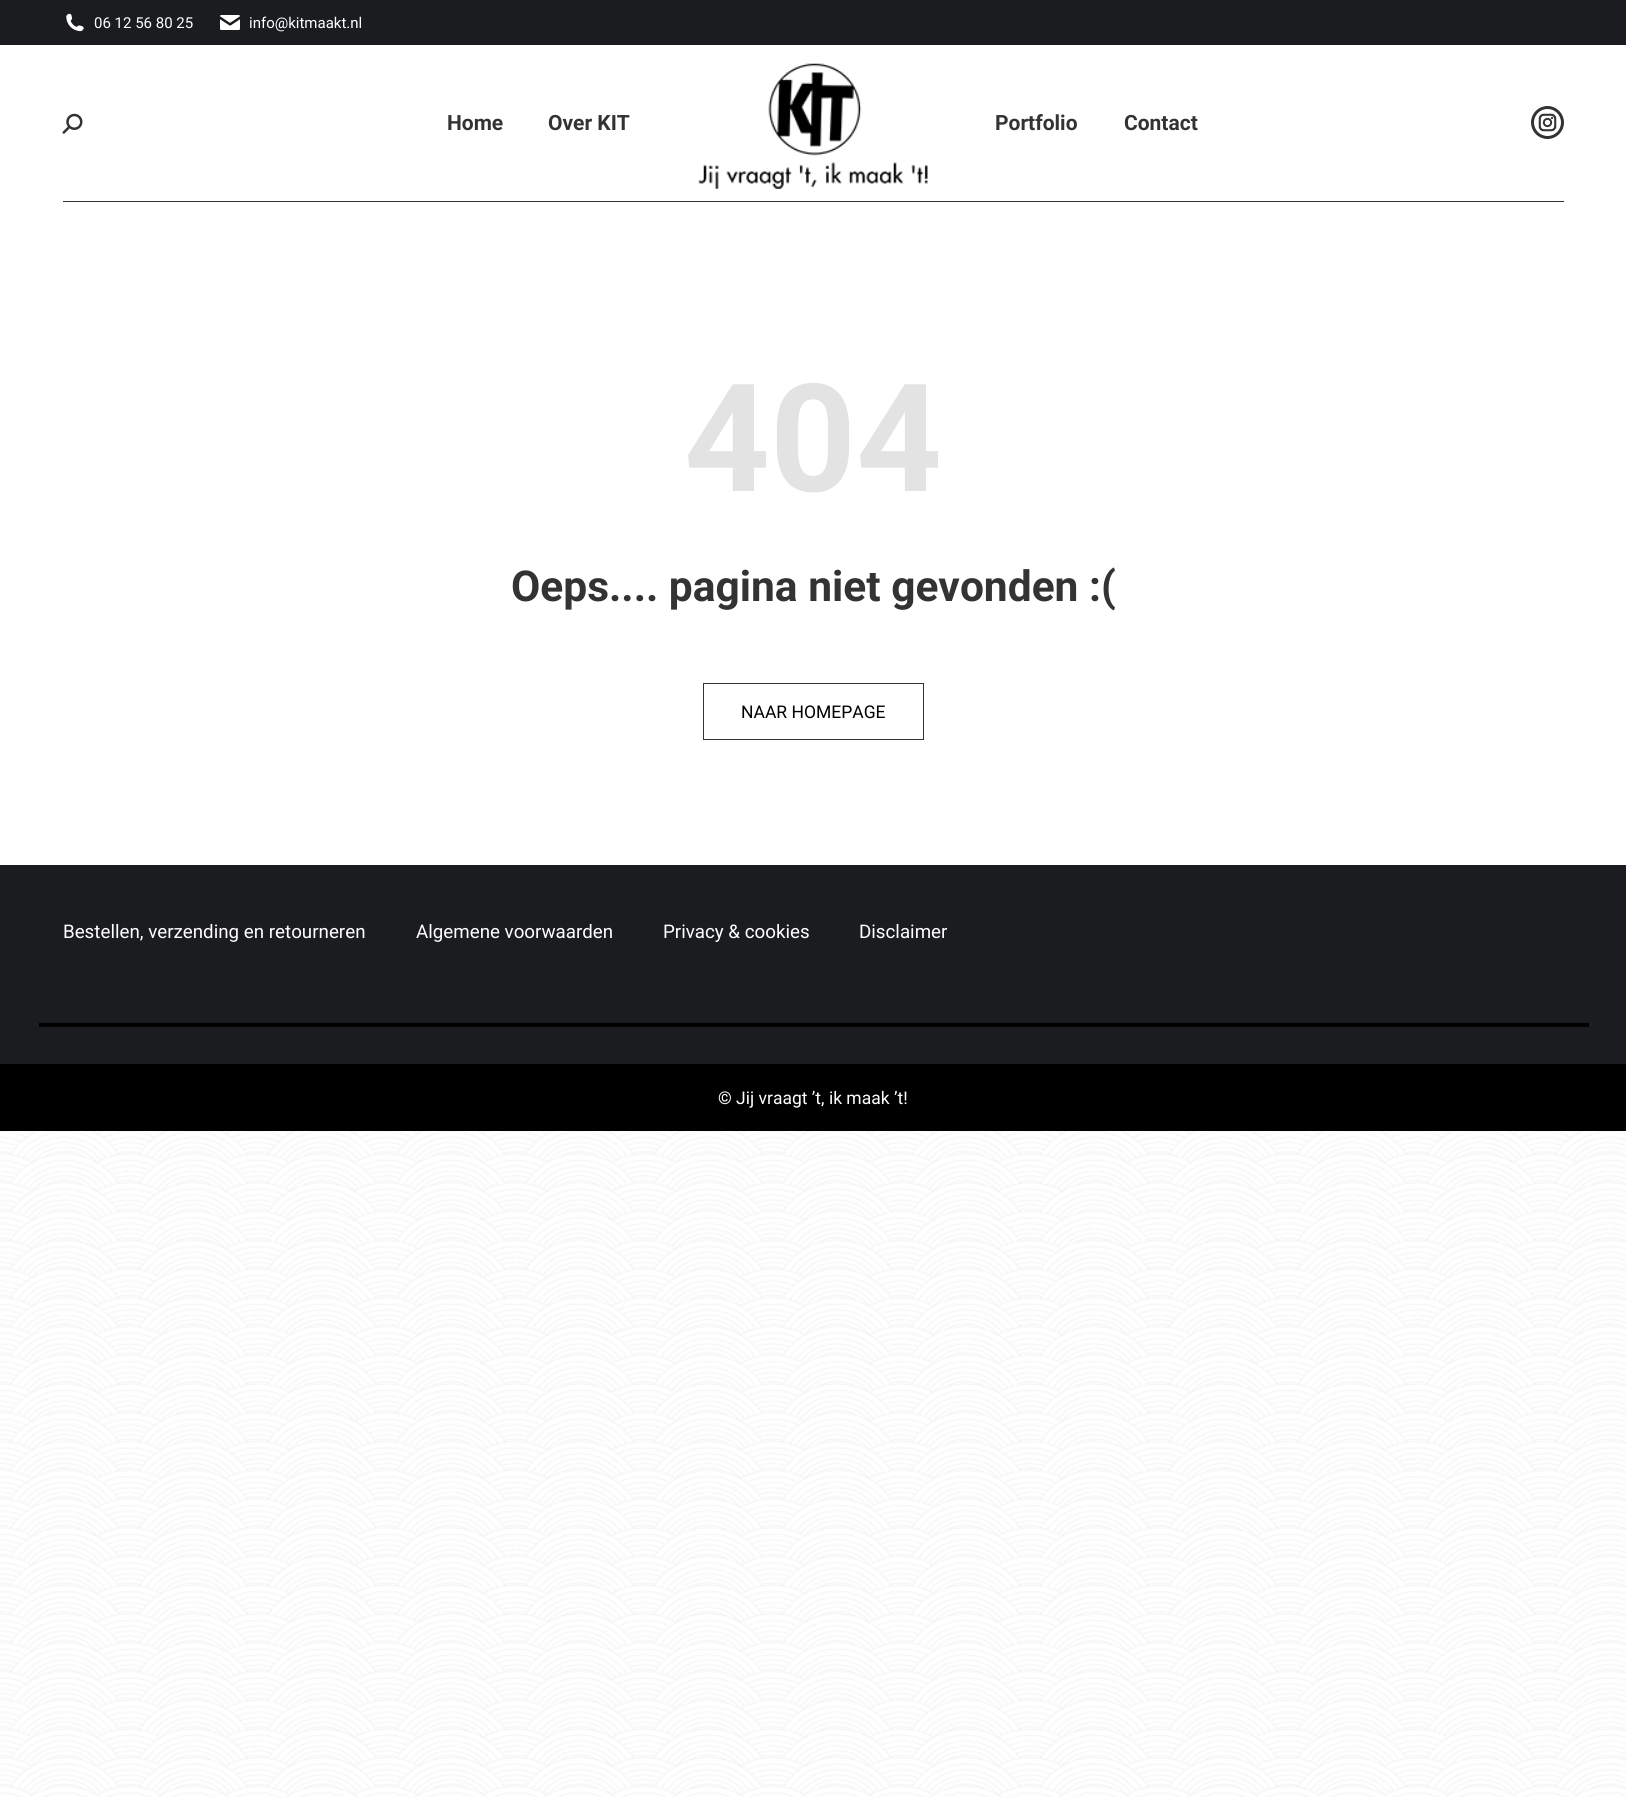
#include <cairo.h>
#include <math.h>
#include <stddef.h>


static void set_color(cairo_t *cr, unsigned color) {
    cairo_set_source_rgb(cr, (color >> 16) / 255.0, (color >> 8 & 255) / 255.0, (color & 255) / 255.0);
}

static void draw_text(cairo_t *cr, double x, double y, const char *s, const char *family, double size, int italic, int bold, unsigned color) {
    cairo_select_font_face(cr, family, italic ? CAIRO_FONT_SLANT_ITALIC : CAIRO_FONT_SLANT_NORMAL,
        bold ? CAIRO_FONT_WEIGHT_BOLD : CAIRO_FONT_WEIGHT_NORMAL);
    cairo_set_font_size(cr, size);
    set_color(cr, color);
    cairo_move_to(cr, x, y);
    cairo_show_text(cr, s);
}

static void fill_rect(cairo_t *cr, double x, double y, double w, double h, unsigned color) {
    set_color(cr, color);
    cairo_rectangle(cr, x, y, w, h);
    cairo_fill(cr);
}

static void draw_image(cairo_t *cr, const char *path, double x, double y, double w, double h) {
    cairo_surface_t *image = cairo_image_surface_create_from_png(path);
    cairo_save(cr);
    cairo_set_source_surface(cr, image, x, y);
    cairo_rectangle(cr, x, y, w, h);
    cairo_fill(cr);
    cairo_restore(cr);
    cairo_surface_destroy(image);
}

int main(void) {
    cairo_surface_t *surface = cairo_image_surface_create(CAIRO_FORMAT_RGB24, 1626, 1797);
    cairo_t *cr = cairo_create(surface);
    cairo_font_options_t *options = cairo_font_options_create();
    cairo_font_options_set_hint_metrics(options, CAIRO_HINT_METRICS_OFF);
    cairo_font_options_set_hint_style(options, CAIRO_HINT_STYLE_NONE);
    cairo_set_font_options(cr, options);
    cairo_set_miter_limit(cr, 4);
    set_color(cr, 0xFFFFFF);
    cairo_paint(cr);
    draw_image(cr, "assets/img1.png", 0, 1131, 1626, 666);
    fill_rect(cr, 0, 0, 1626, 45, 0x1A1C20);
    draw_image(cr, "assets/img2.png", 66, 13, 18, 19);
    draw_text(cr, 94, 28, "06 12 56 80 25", "Roboto", 15, 0, 0, 0xFFFFFF);
    draw_image(cr, "assets/img3.png", 220, 15, 20, 15);
    draw_text(cr, 249, 28, "info@kitmaakt.nl", "Roboto", 15, 0, 0, 0xFFFFFF);
    draw_image(cr, "assets/img4.png", 62, 113, 21, 21);
    draw_text(cr, 447, 130, "Home", "Roboto", 21, 0, 1, 0x333333);
    draw_text(cr, 548, 130, "Over KIT", "Roboto", 21, 0, 1, 0x333333);
    draw_image(cr, "assets/img5.png", 698, 63, 230, 126);
    draw_text(cr, 995, 130, "Portfolio", "Roboto", 21, 0, 1, 0x333333);
    draw_text(cr, 1124, 130, "Contact", "Roboto", 21, 0, 1, 0x333333);
    cairo_new_path(cr);
    cairo_arc(cr, 1547.5, 122.5, 15, 0, 2 * M_PI);
    cairo_set_line_width(cr, 3);
    cairo_stroke(cr);
    draw_image(cr, "assets/img6.png", 1538, 113, 19, 19);
    fill_rect(cr, 63, 201, 1501, 1, 0x333333);
    draw_text(cr, 684, 491, "404", "Roboto", 150, 0, 1, 0xE3E3E3);
    draw_text(cr, 511, 601, "Oeps.... pagina niet gevonden :(", "Roboto", 42.5, 0, 1, 0x333333);
    cairo_rectangle(cr, 703.5, 683.5, 220, 56);
    cairo_set_line_width(cr, 1);
    cairo_stroke(cr);
    draw_text(cr, 741, 718, "NAAR HOMEPAGE", "Roboto", 17.5, 0, 0, 0x000000);
    fill_rect(cr, 0, 865, 1626, 199, 0x1A1C20);
    draw_text(cr, 63, 938, "Bestellen, verzending en retourneren", "Roboto", 18.75, 0, 0, 0xFFFFFF);
    draw_text(cr, 416, 938, "Algemene voorwaarden", "Roboto", 18.75, 0, 0, 0xFFFFFF);
    draw_text(cr, 663, 938, "Privacy & cookies", "Roboto", 18.75, 0, 0, 0xFFFFFF);
    draw_text(cr, 859, 938, "Disclaimer", "Roboto", 18.75, 0, 0, 0xFFFFFF);
    fill_rect(cr, 39, 1023, 1550, 4, 0x000000);
    fill_rect(cr, 0, 1064, 1626, 67, 0x000000);
    draw_text(cr, 718, 1104, "© Jij vraagt ’t, ik maak ’t!", "Roboto", 17.5, 0, 0, 0xFFFFFF);
    cairo_surface_write_to_png(surface, "output.png");
    cairo_font_options_destroy(options);
    cairo_destroy(cr);
    cairo_surface_destroy(surface);
    return 0;
}
